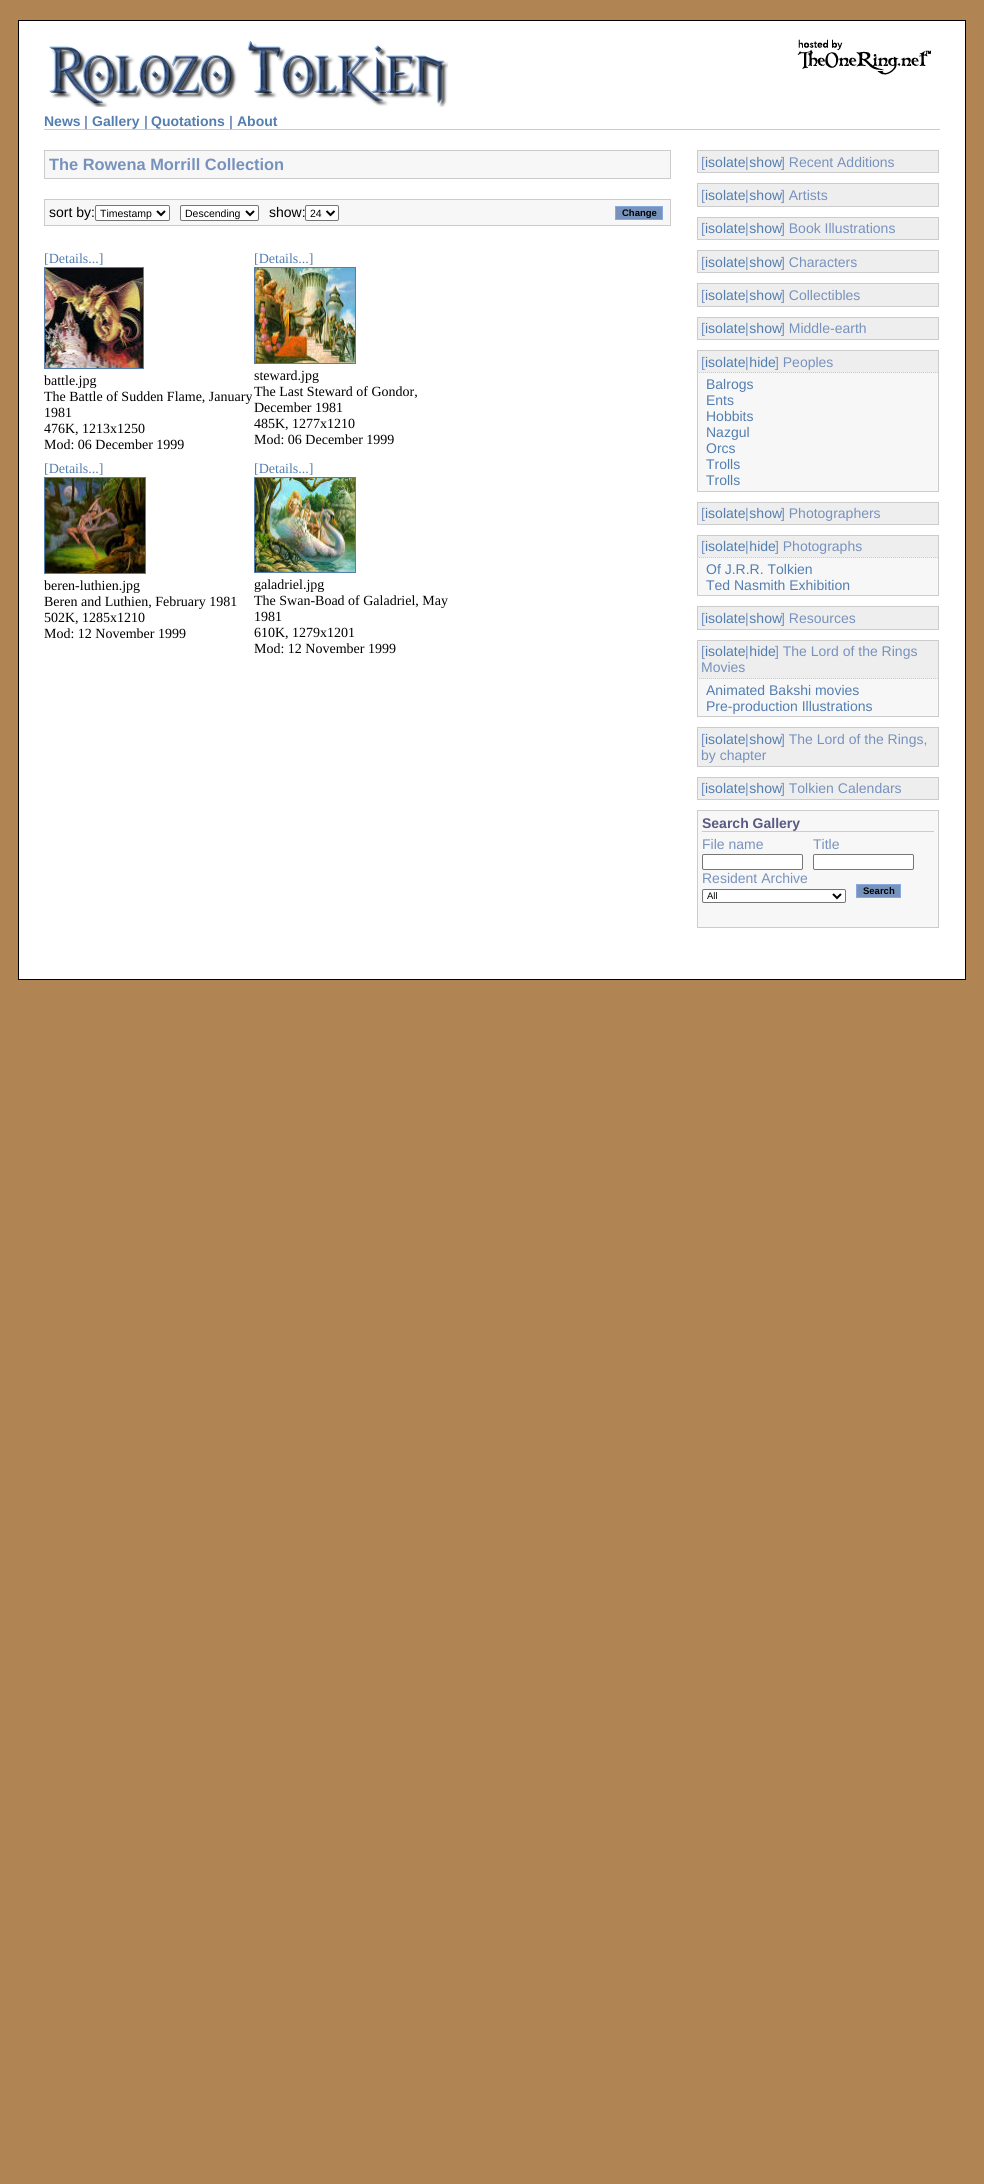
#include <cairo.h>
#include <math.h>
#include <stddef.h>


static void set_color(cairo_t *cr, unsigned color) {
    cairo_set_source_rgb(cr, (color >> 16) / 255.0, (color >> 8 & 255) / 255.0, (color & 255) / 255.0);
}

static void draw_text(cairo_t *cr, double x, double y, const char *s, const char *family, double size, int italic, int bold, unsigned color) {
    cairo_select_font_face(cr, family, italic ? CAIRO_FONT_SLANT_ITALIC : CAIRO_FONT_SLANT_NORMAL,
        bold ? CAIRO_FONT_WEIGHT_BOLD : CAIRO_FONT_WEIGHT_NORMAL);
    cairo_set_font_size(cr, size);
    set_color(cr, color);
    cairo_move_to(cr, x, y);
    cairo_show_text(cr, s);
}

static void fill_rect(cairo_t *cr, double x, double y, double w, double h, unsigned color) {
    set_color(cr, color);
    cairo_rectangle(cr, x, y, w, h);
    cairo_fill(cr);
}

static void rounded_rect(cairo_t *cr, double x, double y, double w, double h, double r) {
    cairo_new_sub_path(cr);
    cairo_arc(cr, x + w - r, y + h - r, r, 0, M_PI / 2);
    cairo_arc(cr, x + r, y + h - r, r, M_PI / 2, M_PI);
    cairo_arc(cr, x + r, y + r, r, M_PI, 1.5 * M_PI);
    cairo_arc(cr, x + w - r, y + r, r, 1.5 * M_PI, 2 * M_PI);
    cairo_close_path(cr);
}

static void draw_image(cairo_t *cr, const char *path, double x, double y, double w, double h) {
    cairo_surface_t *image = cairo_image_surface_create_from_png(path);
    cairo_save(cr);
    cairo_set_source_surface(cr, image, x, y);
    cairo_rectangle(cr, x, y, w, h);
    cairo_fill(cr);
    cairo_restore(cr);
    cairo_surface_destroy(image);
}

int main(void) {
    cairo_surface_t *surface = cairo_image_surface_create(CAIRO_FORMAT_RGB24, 984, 2184);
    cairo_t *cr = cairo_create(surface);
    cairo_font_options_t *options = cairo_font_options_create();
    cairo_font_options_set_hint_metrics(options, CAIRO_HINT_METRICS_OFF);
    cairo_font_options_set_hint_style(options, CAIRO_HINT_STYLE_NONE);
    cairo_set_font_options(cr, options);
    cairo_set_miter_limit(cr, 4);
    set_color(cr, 0xB08553);
    cairo_paint(cr);
    set_color(cr, 0xFFFFFF);
    cairo_rectangle(cr, 18.5, 20.5, 947, 959);
    cairo_fill_preserve(cr);
    set_color(cr, 0x000000);
    cairo_set_line_width(cr, 1);
    cairo_stroke(cr);
    draw_image(cr, "assets/img1.png", 49, 40, 399, 67);
    draw_image(cr, "assets/img2.png", 797, 39, 134, 36);
    fill_rect(cr, 44, 129, 896, 1, 0xCCCCCC);
    draw_text(cr, 44, 126, "News", "Liberation Sans", 14, 0, 1, 0x537EB0);
    draw_text(cr, 84, 126, "|", "Liberation Sans", 14, 0, 1, 0x7792BC);
    draw_text(cr, 92, 126, "Gallery", "Liberation Sans", 14, 0, 1, 0x537EB0);
    draw_text(cr, 144, 126, "|", "Liberation Sans", 14, 0, 1, 0x7792BC);
    draw_text(cr, 151, 126, "Quotations", "Liberation Sans", 14, 0, 1, 0x537EB0);
    draw_text(cr, 229, 126, "|", "Liberation Sans", 14, 0, 1, 0x7792BC);
    draw_text(cr, 237, 126, "About", "Liberation Sans", 14, 0, 1, 0x537EB0);
    set_color(cr, 0xF7F7F7);
    cairo_rectangle(cr, 44.5, 150.5, 626, 28);
    cairo_fill_preserve(cr);
    set_color(cr, 0xCCCCCC);
    cairo_stroke(cr);
    draw_text(cr, 49, 170, "The Rowena Morrill Collection", "Liberation Sans", 16.4, 0, 1, 0x7792BC);
    set_color(cr, 0xF7F7F7);
    cairo_rectangle(cr, 44.5, 199.5, 626, 26);
    cairo_fill_preserve(cr);
    set_color(cr, 0xCCCCCC);
    cairo_stroke(cr);
    draw_text(cr, 49, 217, "sort by:", "Liberation Sans", 14, 0, 0, 0x000000);
    set_color(cr, 0xFFFFFF);
    rounded_rect(cr, 95.5, 205.5, 74, 15, 1.5);
    cairo_fill_preserve(cr);
    set_color(cr, 0x767676);
    cairo_stroke(cr);
    cairo_new_path(cr);
    cairo_move_to(cr, 157, 211);
    cairo_line_to(cr, 161, 215);
    cairo_line_to(cr, 165, 211);
    set_color(cr, 0x000000);
    cairo_set_line_width(cr, 2);
    cairo_stroke(cr);
    draw_text(cr, 100, 217, "Timestamp", "Liberation Sans", 10.5, 0, 0, 0x000000);
    set_color(cr, 0xFFFFFF);
    rounded_rect(cr, 180.5, 205.5, 78, 15, 1.5);
    cairo_fill_preserve(cr);
    set_color(cr, 0x767676);
    cairo_set_line_width(cr, 1);
    cairo_stroke(cr);
    cairo_new_path(cr);
    cairo_move_to(cr, 246, 211);
    cairo_line_to(cr, 250, 215);
    cairo_line_to(cr, 254, 211);
    set_color(cr, 0x000000);
    cairo_set_line_width(cr, 2);
    cairo_stroke(cr);
    draw_text(cr, 185, 217, "Descending", "Liberation Sans", 10.5, 0, 0, 0x000000);
    draw_text(cr, 269, 217, "show:", "Liberation Sans", 14, 0, 0, 0x000000);
    set_color(cr, 0xFFFFFF);
    rounded_rect(cr, 305.5, 205.5, 33, 15, 1.5);
    cairo_fill_preserve(cr);
    set_color(cr, 0x767676);
    cairo_set_line_width(cr, 1);
    cairo_stroke(cr);
    cairo_new_path(cr);
    cairo_move_to(cr, 326.5, 211);
    cairo_line_to(cr, 330.5, 215);
    cairo_line_to(cr, 334.5, 211);
    set_color(cr, 0x000000);
    cairo_set_line_width(cr, 2);
    cairo_stroke(cr);
    draw_text(cr, 310, 217, "24", "Liberation Sans", 10.5, 0, 0, 0x000000);
    set_color(cr, 0x7792BC);
    cairo_rectangle(cr, 615.5, 206.5, 47, 13);
    cairo_fill_preserve(cr);
    set_color(cr, 0x88AADD);
    cairo_set_line_width(cr, 1);
    cairo_stroke(cr);
    draw_text(cr, 622, 216, "Change", "Liberation Sans", 9.5, 0, 1, 0x000000);
    draw_text(cr, 44, 263, "[Details...]", "Liberation Serif", 14, 0, 0, 0x537EB0);
    cairo_rectangle(cr, 44.5, 267.5, 99, 101);
    cairo_stroke(cr);
    draw_image(cr, "assets/img3.png", 45, 268, 98, 100);
    draw_text(cr, 44, 385, "battle.jpg", "Liberation Serif", 14, 0, 0, 0x000000);
    draw_text(cr, 44, 401, "The Battle of Sudden Flame, January", "Liberation Serif", 14, 0, 0, 0x000000);
    draw_text(cr, 44, 417, "1981", "Liberation Serif", 14, 0, 0, 0x000000);
    draw_text(cr, 44, 433, "476K, 1213x1250", "Liberation Serif", 14, 0, 0, 0x000000);
    draw_text(cr, 44, 449, "Mod: 06 December 1999", "Liberation Serif", 14, 0, 0, 0x000000);
    draw_text(cr, 254, 263, "[Details...]", "Liberation Serif", 14, 0, 0, 0x537EB0);
    cairo_rectangle(cr, 254.5, 267.5, 101, 96);
    cairo_stroke(cr);
    draw_image(cr, "assets/img4.png", 255, 268, 100, 95);
    draw_text(cr, 254, 380, "steward.jpg", "Liberation Serif", 14, 0, 0, 0x000000);
    draw_text(cr, 254, 396, "The Last Steward of Gondor,", "Liberation Serif", 14, 0, 0, 0x000000);
    draw_text(cr, 254, 412, "December 1981", "Liberation Serif", 14, 0, 0, 0x000000);
    draw_text(cr, 254, 428, "485K, 1277x1210", "Liberation Serif", 14, 0, 0, 0x000000);
    draw_text(cr, 254, 444, "Mod: 06 December 1999", "Liberation Serif", 14, 0, 0, 0x000000);
    draw_text(cr, 44, 473, "[Details...]", "Liberation Serif", 14, 0, 0, 0x537EB0);
    cairo_rectangle(cr, 44.5, 477.5, 101, 96);
    cairo_stroke(cr);
    draw_image(cr, "assets/img5.png", 45, 478, 100, 95);
    draw_text(cr, 44, 590, "beren-luthien.jpg", "Liberation Serif", 14, 0, 0, 0x000000);
    draw_text(cr, 44, 606, "Beren and Luthien, February 1981", "Liberation Serif", 14, 0, 0, 0x000000);
    draw_text(cr, 44, 622, "502K, 1285x1210", "Liberation Serif", 14, 0, 0, 0x000000);
    draw_text(cr, 44, 638, "Mod: 12 November 1999", "Liberation Serif", 14, 0, 0, 0x000000);
    draw_text(cr, 254, 473, "[Details...]", "Liberation Serif", 14, 0, 0, 0x537EB0);
    cairo_rectangle(cr, 254.5, 477.5, 101, 95);
    cairo_stroke(cr);
    draw_image(cr, "assets/img6.png", 255, 478, 100, 94);
    draw_text(cr, 254, 589, "galadriel.jpg", "Liberation Serif", 14, 0, 0, 0x000000);
    draw_text(cr, 254, 605, "The Swan-Boad of Galadriel, May", "Liberation Serif", 14, 0, 0, 0x000000);
    draw_text(cr, 254, 621, "1981", "Liberation Serif", 14, 0, 0, 0x000000);
    draw_text(cr, 254, 637, "610K, 1279x1201", "Liberation Serif", 14, 0, 0, 0x000000);
    draw_text(cr, 254, 653, "Mod: 12 November 1999", "Liberation Serif", 14, 0, 0, 0x000000);
    set_color(cr, 0xEEEEEE);
    cairo_rectangle(cr, 697.5, 150.5, 241, 22);
    cairo_fill_preserve(cr);
    set_color(cr, 0xCCCCCC);
    cairo_stroke(cr);
    draw_text(cr, 701, 167, "[", "Liberation Sans", 14, 0, 0, 0x7792BC);
    draw_text(cr, 705, 167, "isolate show", "Liberation Sans", 14, 0, 0, 0x537EB0);
    draw_text(cr, 745, 167, "|", "Liberation Sans", 14, 0, 0, 0x7792BC);
    draw_text(cr, 781, 167, "] Recent Additions", "Liberation Sans", 14, 0, 0, 0x7792BC);
    set_color(cr, 0xEEEEEE);
    cairo_rectangle(cr, 697.5, 183.5, 241, 23);
    cairo_fill_preserve(cr);
    set_color(cr, 0xCCCCCC);
    cairo_stroke(cr);
    draw_text(cr, 701, 200, "[", "Liberation Sans", 14, 0, 0, 0x7792BC);
    draw_text(cr, 705, 200, "isolate show", "Liberation Sans", 14, 0, 0, 0x537EB0);
    draw_text(cr, 745, 200, "|", "Liberation Sans", 14, 0, 0, 0x7792BC);
    draw_text(cr, 781, 200, "] Artists", "Liberation Sans", 14, 0, 0, 0x7792BC);
    set_color(cr, 0xEEEEEE);
    cairo_rectangle(cr, 697.5, 217.5, 241, 22);
    cairo_fill_preserve(cr);
    set_color(cr, 0xCCCCCC);
    cairo_stroke(cr);
    draw_text(cr, 701, 233, "[", "Liberation Sans", 14, 0, 0, 0x7792BC);
    draw_text(cr, 705, 233, "isolate show", "Liberation Sans", 14, 0, 0, 0x537EB0);
    draw_text(cr, 745, 233, "|", "Liberation Sans", 14, 0, 0, 0x7792BC);
    draw_text(cr, 781, 233, "] Book Illustrations", "Liberation Sans", 14, 0, 0, 0x7792BC);
    set_color(cr, 0xEEEEEE);
    cairo_rectangle(cr, 697.5, 250.5, 241, 22);
    cairo_fill_preserve(cr);
    set_color(cr, 0xCCCCCC);
    cairo_stroke(cr);
    draw_text(cr, 701, 267, "[", "Liberation Sans", 14, 0, 0, 0x7792BC);
    draw_text(cr, 705, 267, "isolate show", "Liberation Sans", 14, 0, 0, 0x537EB0);
    draw_text(cr, 745, 267, "|", "Liberation Sans", 14, 0, 0, 0x7792BC);
    draw_text(cr, 781, 267, "] Characters", "Liberation Sans", 14, 0, 0, 0x7792BC);
    set_color(cr, 0xEEEEEE);
    cairo_rectangle(cr, 697.5, 283.5, 241, 23);
    cairo_fill_preserve(cr);
    set_color(cr, 0xCCCCCC);
    cairo_stroke(cr);
    draw_text(cr, 701, 300, "[", "Liberation Sans", 14, 0, 0, 0x7792BC);
    draw_text(cr, 705, 300, "isolate show", "Liberation Sans", 14, 0, 0, 0x537EB0);
    draw_text(cr, 745, 300, "|", "Liberation Sans", 14, 0, 0, 0x7792BC);
    draw_text(cr, 781, 300, "] Collectibles", "Liberation Sans", 14, 0, 0, 0x7792BC);
    set_color(cr, 0xEEEEEE);
    cairo_rectangle(cr, 697.5, 317.5, 241, 22);
    cairo_fill_preserve(cr);
    set_color(cr, 0xCCCCCC);
    cairo_stroke(cr);
    draw_text(cr, 701, 333, "[", "Liberation Sans", 14, 0, 0, 0x7792BC);
    draw_text(cr, 705, 333, "isolate show", "Liberation Sans", 14, 0, 0, 0x537EB0);
    draw_text(cr, 745, 333, "|", "Liberation Sans", 14, 0, 0, 0x7792BC);
    draw_text(cr, 781, 333, "] Middle-earth", "Liberation Sans", 14, 0, 0, 0x7792BC);
    fill_rect(cr, 698, 351, 240, 22, 0xEEEEEE);
    fill_rect(cr, 697, 350, 242, 1, 0xCCCCCC);
    fill_rect(cr, 938, 350, 1, 142, 0xCCCCCC);
    cairo_new_path(cr);
    cairo_move_to(cr, 697, 372.5);
    cairo_line_to(cr, 939, 372.5);
    cairo_set_dash(cr, (double[]){1, 1}, 2, 0);
    cairo_stroke(cr);
    fill_rect(cr, 697, 350, 1, 23, 0xCCCCCC);
    draw_text(cr, 701, 367, "[", "Liberation Sans", 14, 0, 0, 0x7792BC);
    draw_text(cr, 705, 367, "isolate hide", "Liberation Sans", 14, 0, 0, 0x537EB0);
    draw_text(cr, 745, 367, "|", "Liberation Sans", 14, 0, 0, 0x7792BC);
    draw_text(cr, 775, 367, "] Peoples", "Liberation Sans", 14, 0, 0, 0x7792BC);
    fill_rect(cr, 698, 373, 240, 118, 0xF7F7F7);
    fill_rect(cr, 697, 491, 242, 1, 0xCCCCCC);
    fill_rect(cr, 697, 373, 1, 119, 0xCCCCCC);
    draw_text(cr, 706, 389, "Balrogs", "Liberation Sans", 14, 0, 0, 0x537EB0);
    draw_text(cr, 706, 405, "Ents", "Liberation Sans", 14, 0, 0, 0x537EB0);
    draw_text(cr, 706, 421, "Hobbits", "Liberation Sans", 14, 0, 0, 0x537EB0);
    draw_text(cr, 706, 437, "Nazgul", "Liberation Sans", 14, 0, 0, 0x537EB0);
    draw_text(cr, 706, 453, "Orcs", "Liberation Sans", 14, 0, 0, 0x537EB0);
    draw_text(cr, 706, 469, "Trolls", "Liberation Sans", 14, 0, 0, 0x537EB0);
    draw_text(cr, 706, 485, "Trolls", "Liberation Sans", 14, 0, 0, 0x537EB0);
    set_color(cr, 0xEEEEEE);
    cairo_rectangle(cr, 697.5, 502.5, 241, 22);
    cairo_fill_preserve(cr);
    set_color(cr, 0xCCCCCC);
    cairo_set_dash(cr, NULL, 0, 0);
    cairo_stroke(cr);
    draw_text(cr, 701, 518, "[", "Liberation Sans", 14, 0, 0, 0x7792BC);
    draw_text(cr, 705, 518, "isolate show", "Liberation Sans", 14, 0, 0, 0x537EB0);
    draw_text(cr, 745, 518, "|", "Liberation Sans", 14, 0, 0, 0x7792BC);
    draw_text(cr, 781, 518, "] Photographers", "Liberation Sans", 14, 0, 0, 0x7792BC);
    fill_rect(cr, 698, 536, 240, 22, 0xEEEEEE);
    fill_rect(cr, 697, 535, 242, 1, 0xCCCCCC);
    fill_rect(cr, 938, 535, 1, 61, 0xCCCCCC);
    cairo_new_path(cr);
    cairo_move_to(cr, 697, 557.5);
    cairo_line_to(cr, 939, 557.5);
    cairo_set_dash(cr, (double[]){1, 1}, 2, 0);
    cairo_stroke(cr);
    fill_rect(cr, 697, 535, 1, 23, 0xCCCCCC);
    draw_text(cr, 701, 551, "[", "Liberation Sans", 14, 0, 0, 0x7792BC);
    draw_text(cr, 705, 551, "isolate hide", "Liberation Sans", 14, 0, 0, 0x537EB0);
    draw_text(cr, 745, 551, "|", "Liberation Sans", 14, 0, 0, 0x7792BC);
    draw_text(cr, 775, 551, "] Photographs", "Liberation Sans", 14, 0, 0, 0x7792BC);
    fill_rect(cr, 698, 558, 240, 37, 0xF7F7F7);
    fill_rect(cr, 697, 595, 242, 1, 0xCCCCCC);
    fill_rect(cr, 697, 558, 1, 38, 0xCCCCCC);
    draw_text(cr, 706, 574, "Of J.R.R. Tolkien", "Liberation Sans", 14, 0, 0, 0x537EB0);
    draw_text(cr, 706, 590, "Ted Nasmith Exhibition", "Liberation Sans", 14, 0, 0, 0x537EB0);
    set_color(cr, 0xEEEEEE);
    cairo_rectangle(cr, 697.5, 606.5, 241, 23);
    cairo_fill_preserve(cr);
    set_color(cr, 0xCCCCCC);
    cairo_set_dash(cr, NULL, 0, 0);
    cairo_stroke(cr);
    draw_text(cr, 701, 623, "[", "Liberation Sans", 14, 0, 0, 0x7792BC);
    draw_text(cr, 705, 623, "isolate show", "Liberation Sans", 14, 0, 0, 0x537EB0);
    draw_text(cr, 745, 623, "|", "Liberation Sans", 14, 0, 0, 0x7792BC);
    draw_text(cr, 781, 623, "] Resources", "Liberation Sans", 14, 0, 0, 0x7792BC);
    fill_rect(cr, 698, 641, 240, 38, 0xEEEEEE);
    fill_rect(cr, 697, 640, 242, 1, 0xCCCCCC);
    fill_rect(cr, 938, 640, 1, 77, 0xCCCCCC);
    cairo_new_path(cr);
    cairo_move_to(cr, 697, 678.5);
    cairo_line_to(cr, 939, 678.5);
    cairo_set_dash(cr, (double[]){1, 1}, 2, 0);
    cairo_stroke(cr);
    fill_rect(cr, 697, 640, 1, 39, 0xCCCCCC);
    draw_text(cr, 701, 656, "[", "Liberation Sans", 14, 0, 0, 0x7792BC);
    draw_text(cr, 705, 656, "isolate hide", "Liberation Sans", 14, 0, 0, 0x537EB0);
    draw_text(cr, 745, 656, "|", "Liberation Sans", 14, 0, 0, 0x7792BC);
    draw_text(cr, 775, 656, "] The Lord of the Rings", "Liberation Sans", 14, 0, 0, 0x7792BC);
    draw_text(cr, 701, 672, "Movies", "Liberation Sans", 14, 0, 0, 0x7792BC);
    fill_rect(cr, 698, 679, 240, 37, 0xF7F7F7);
    fill_rect(cr, 697, 716, 242, 1, 0xCCCCCC);
    fill_rect(cr, 697, 679, 1, 38, 0xCCCCCC);
    draw_text(cr, 706, 695, "Animated Bakshi movies", "Liberation Sans", 14, 0, 0, 0x537EB0);
    draw_text(cr, 706, 711, "Pre-production Illustrations", "Liberation Sans", 14, 0, 0, 0x537EB0);
    set_color(cr, 0xEEEEEE);
    cairo_rectangle(cr, 697.5, 727.5, 241, 39);
    cairo_fill_preserve(cr);
    set_color(cr, 0xCCCCCC);
    cairo_set_dash(cr, NULL, 0, 0);
    cairo_stroke(cr);
    draw_text(cr, 701, 744, "[", "Liberation Sans", 14, 0, 0, 0x7792BC);
    draw_text(cr, 705, 744, "isolate show", "Liberation Sans", 14, 0, 0, 0x537EB0);
    draw_text(cr, 745, 744, "|", "Liberation Sans", 14, 0, 0, 0x7792BC);
    draw_text(cr, 781, 744, "] The Lord of the Rings,", "Liberation Sans", 14, 0, 0, 0x7792BC);
    draw_text(cr, 701, 760, "by chapter", "Liberation Sans", 14, 0, 0, 0x7792BC);
    set_color(cr, 0xEEEEEE);
    cairo_rectangle(cr, 697.5, 777.5, 241, 22);
    cairo_fill_preserve(cr);
    set_color(cr, 0xCCCCCC);
    cairo_stroke(cr);
    draw_text(cr, 701, 793, "[", "Liberation Sans", 14, 0, 0, 0x7792BC);
    draw_text(cr, 705, 793, "isolate show", "Liberation Sans", 14, 0, 0, 0x537EB0);
    draw_text(cr, 745, 793, "|", "Liberation Sans", 14, 0, 0, 0x7792BC);
    draw_text(cr, 781, 793, "] Tolkien Calendars", "Liberation Sans", 14, 0, 0, 0x7792BC);
    set_color(cr, 0xF7F7F7);
    cairo_rectangle(cr, 697.5, 810.5, 241, 117);
    cairo_fill_preserve(cr);
    set_color(cr, 0xCCCCCC);
    cairo_stroke(cr);
    fill_rect(cr, 702, 831, 232, 1, 0xCCCCCC);
    draw_text(cr, 702, 828, "Search Gallery", "Liberation Sans", 14, 0, 1, 0x595983);
    draw_text(cr, 702, 849, "File name", "Liberation Sans", 14, 0, 0, 0x7792BC);
    set_color(cr, 0xFFFFFF);
    rounded_rect(cr, 702.5, 854.5, 100, 15, 1.5);
    cairo_fill_preserve(cr);
    set_color(cr, 0x767676);
    cairo_stroke(cr);
    draw_text(cr, 813, 849, "Title", "Liberation Sans", 14, 0, 0, 0x7792BC);
    set_color(cr, 0xFFFFFF);
    rounded_rect(cr, 813.5, 854.5, 100, 15, 1.5);
    cairo_fill_preserve(cr);
    set_color(cr, 0x767676);
    cairo_stroke(cr);
    draw_text(cr, 702, 883, "Resident Archive", "Liberation Sans", 14, 0, 0, 0x7792BC);
    set_color(cr, 0xFFFFFF);
    rounded_rect(cr, 702.5, 889.5, 143, 13, 1.5);
    cairo_fill_preserve(cr);
    set_color(cr, 0x767676);
    cairo_stroke(cr);
    cairo_new_path(cr);
    cairo_move_to(cr, 833, 894);
    cairo_line_to(cr, 837, 898);
    cairo_line_to(cr, 841, 894);
    set_color(cr, 0x000000);
    cairo_set_line_width(cr, 2);
    cairo_stroke(cr);
    draw_text(cr, 707, 899, "All", "Liberation Sans", 9.5, 0, 0, 0x000000);
    set_color(cr, 0x7792BC);
    cairo_rectangle(cr, 856.5, 884.5, 44, 13);
    cairo_fill_preserve(cr);
    set_color(cr, 0x88AADD);
    cairo_set_line_width(cr, 1);
    cairo_stroke(cr);
    draw_text(cr, 863, 894, "Search", "Liberation Sans", 9.5, 0, 1, 0x000000);
    cairo_surface_write_to_png(surface, "output.png");
    cairo_font_options_destroy(options);
    cairo_destroy(cr);
    cairo_surface_destroy(surface);
    return 0;
}
